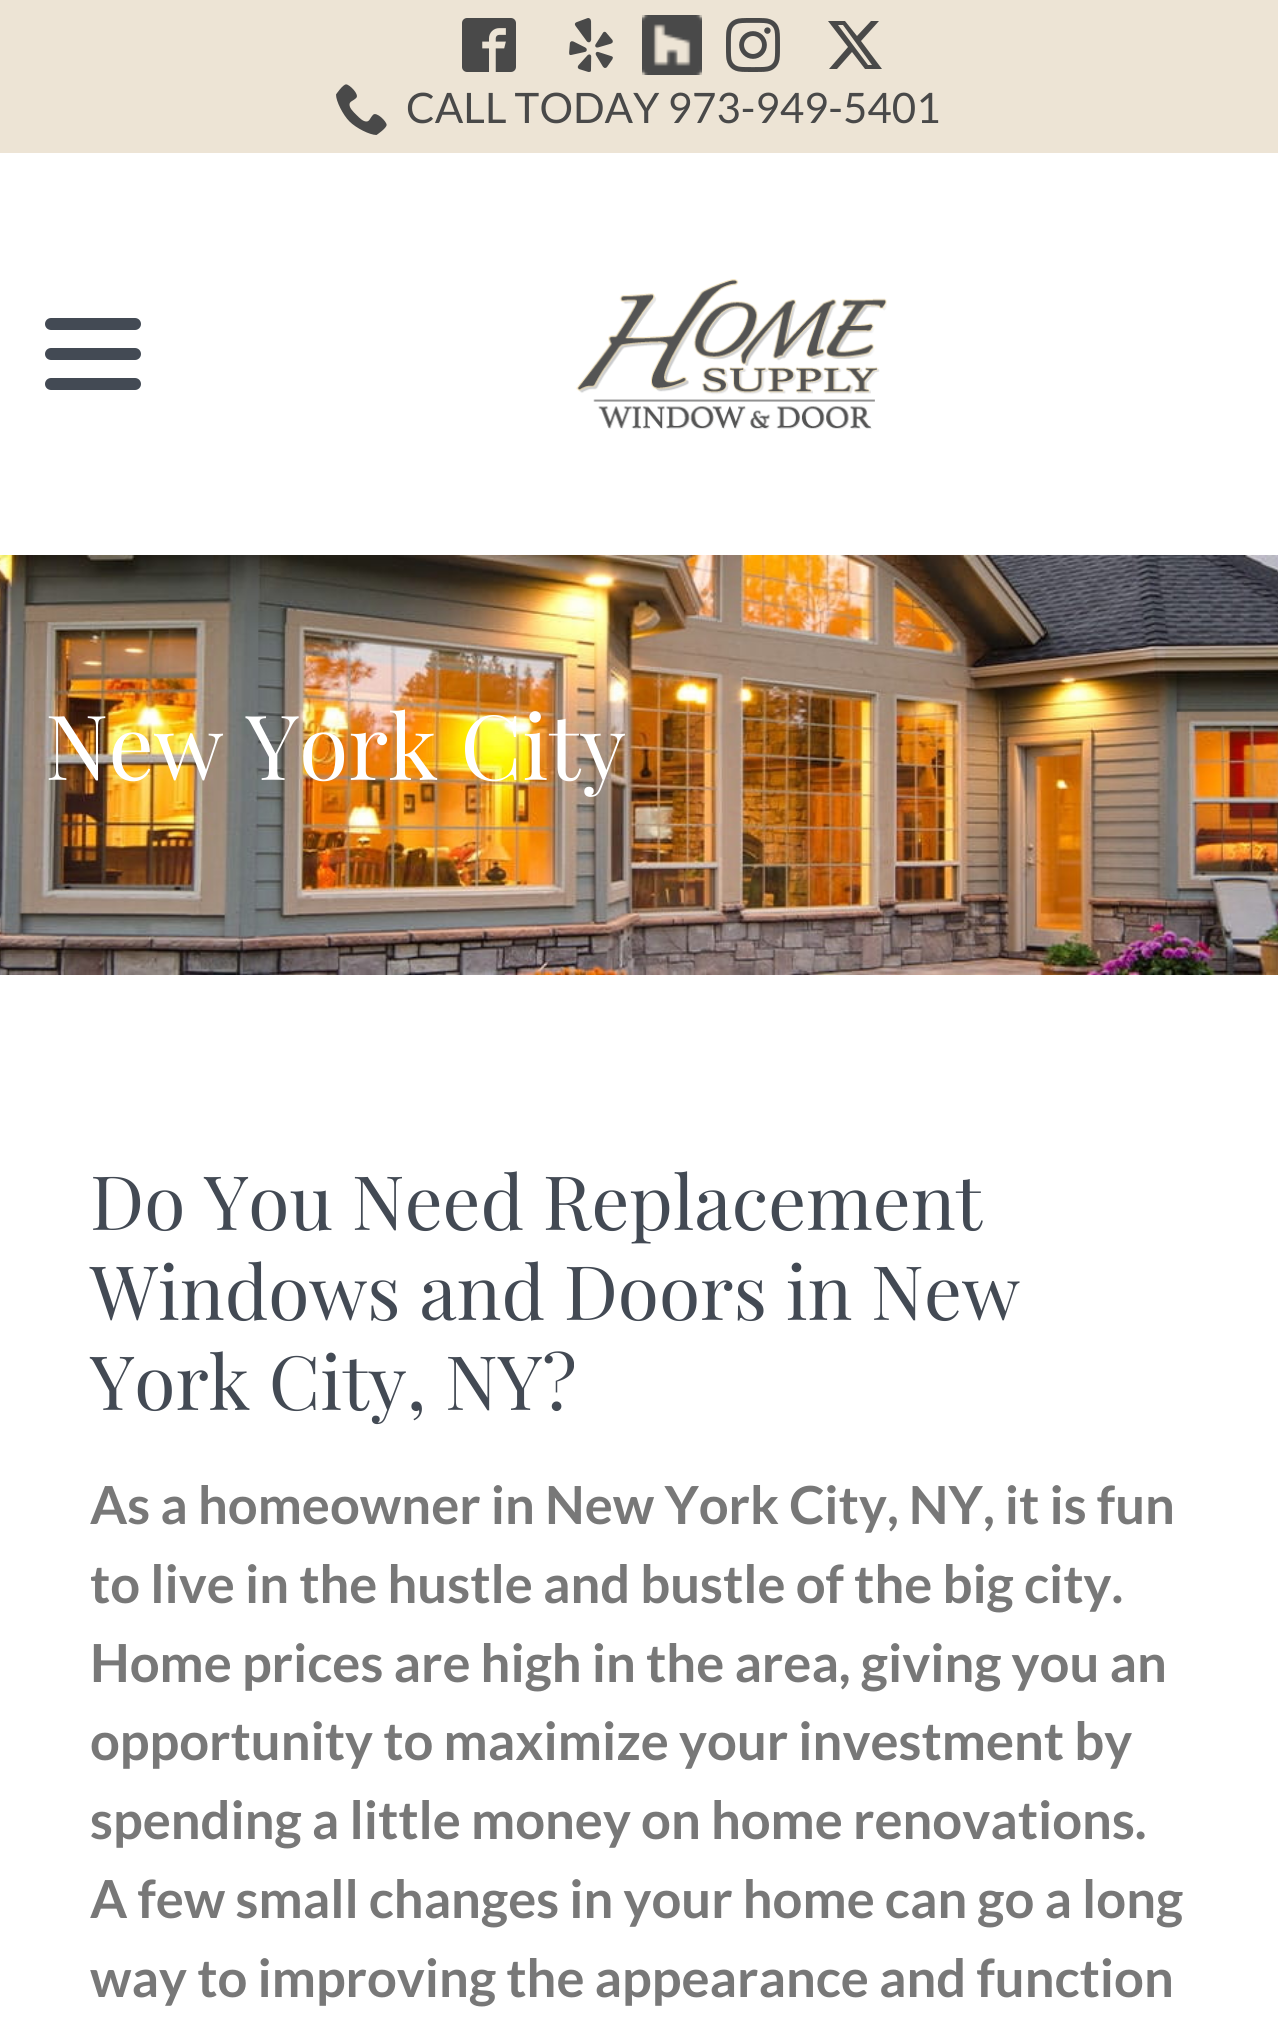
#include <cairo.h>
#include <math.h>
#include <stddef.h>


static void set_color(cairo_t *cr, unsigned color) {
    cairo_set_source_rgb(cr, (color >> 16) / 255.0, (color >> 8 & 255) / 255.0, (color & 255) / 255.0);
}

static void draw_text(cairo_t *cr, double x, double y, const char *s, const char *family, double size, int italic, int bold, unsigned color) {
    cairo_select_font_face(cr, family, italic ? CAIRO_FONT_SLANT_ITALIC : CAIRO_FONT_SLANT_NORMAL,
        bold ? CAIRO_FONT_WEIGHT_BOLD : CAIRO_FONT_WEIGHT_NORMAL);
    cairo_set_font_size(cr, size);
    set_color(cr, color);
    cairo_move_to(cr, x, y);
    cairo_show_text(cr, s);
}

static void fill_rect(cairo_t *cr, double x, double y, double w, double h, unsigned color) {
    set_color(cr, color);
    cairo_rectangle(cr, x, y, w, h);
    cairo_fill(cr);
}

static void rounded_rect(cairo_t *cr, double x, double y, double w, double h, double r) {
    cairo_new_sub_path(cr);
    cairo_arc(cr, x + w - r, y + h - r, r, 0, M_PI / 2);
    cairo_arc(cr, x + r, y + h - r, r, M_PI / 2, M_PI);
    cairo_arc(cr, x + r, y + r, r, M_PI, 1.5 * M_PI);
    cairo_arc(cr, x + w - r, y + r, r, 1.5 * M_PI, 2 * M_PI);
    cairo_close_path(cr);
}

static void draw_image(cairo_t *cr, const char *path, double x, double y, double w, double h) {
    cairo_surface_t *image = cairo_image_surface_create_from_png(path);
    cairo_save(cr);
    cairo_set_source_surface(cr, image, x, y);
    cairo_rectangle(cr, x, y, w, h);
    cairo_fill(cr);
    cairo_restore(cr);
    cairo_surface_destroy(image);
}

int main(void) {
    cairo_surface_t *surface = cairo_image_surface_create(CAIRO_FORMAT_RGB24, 1278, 2019);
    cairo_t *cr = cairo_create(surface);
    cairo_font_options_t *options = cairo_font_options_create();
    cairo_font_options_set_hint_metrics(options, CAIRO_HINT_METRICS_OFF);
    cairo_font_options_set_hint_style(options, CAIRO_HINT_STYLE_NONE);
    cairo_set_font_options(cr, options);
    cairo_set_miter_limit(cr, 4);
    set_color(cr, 0xFFFFFF);
    cairo_paint(cr);
    fill_rect(cr, 0, 0, 1278, 153, 0xEDE4D5);
    draw_image(cr, "assets/img1.png", 462, 18, 54, 54);
    draw_image(cr, "assets/img2.png", 569, 18, 44, 54);
    draw_image(cr, "assets/img3.png", 642, 15, 60, 60);
    draw_image(cr, "assets/img4.png", 726, 18, 54, 54);
    set_color(cr, 0x494949);
    cairo_new_path(cr);
    cairo_move_to(cr, 871, 21);
    cairo_line_to(cr, 879, 21);
    cairo_line_to(cr, 861, 41);
    cairo_line_to(cr, 882, 69);
    cairo_line_to(cr, 865, 69);
    cairo_line_to(cr, 852, 52);
    cairo_line_to(cr, 837, 69);
    cairo_line_to(cr, 829, 69);
    cairo_line_to(cr, 848, 47);
    cairo_line_to(cr, 828, 21);
    cairo_line_to(cr, 845, 21);
    cairo_line_to(cr, 857, 36);
    cairo_close_path(cr);
    cairo_move_to(cr, 868, 65);
    cairo_line_to(cr, 872, 65);
    cairo_line_to(cr, 843, 25);
    cairo_line_to(cr, 838, 25);
    cairo_close_path(cr);
    cairo_fill(cr);
    draw_image(cr, "assets/img5.png", 336, 84, 51, 51);
    draw_text(cr, 406, 123, "CALL TODAY 973-949-5401", "Lato", 42, 0, 0, 0x494949);
    set_color(cr, 0x434A54);
    rounded_rect(cr, 45, 348, 96, 12, 6);
    cairo_fill(cr);
    rounded_rect(cr, 45, 318, 96, 12, 6);
    cairo_fill(cr);
    rounded_rect(cr, 45, 378, 96, 12, 6);
    cairo_fill(cr);
    draw_image(cr, "assets/img6.png", 576, 279, 311, 150);
    draw_image(cr, "assets/img7.png", 0, 555, 1278, 420);
    draw_text(cr, 45, 780, "New York City", "Playfair Display", 90, 0, 0, 0xFFFFFF);
    draw_text(cr, 90, 1230, "Do You Need Replacement", "Playfair Display", 75, 0, 0, 0x434A54);
    draw_text(cr, 90, 1320, "Windows and Doors in New", "Playfair Display", 75, 0, 0, 0x434A54);
    draw_text(cr, 90, 1410, "York City, NY?", "Playfair Display", 75, 0, 0, 0x434A54);
    draw_text(cr, 90, 1524, "As a homeowner in New York City, NY, it is fun", "Lato", 52.5, 0, 1, 0x787878);
    draw_text(cr, 90, 1603, "to live in the hustle and bustle of the big city.", "Lato", 52.5, 0, 1, 0x787878);
    draw_text(cr, 90, 1682, "Home prices are high in the area, giving you an", "Lato", 52.5, 0, 1, 0x787878);
    draw_text(cr, 90, 1760, "opportunity to maximize your investment by", "Lato", 52.5, 0, 1, 0x787878);
    draw_text(cr, 90, 1839, "spending a little money on home renovations.", "Lato", 52.5, 0, 1, 0x787878);
    draw_text(cr, 90, 1918, "A few small changes in your home can go a long", "Lato", 52.5, 0, 1, 0x787878);
    draw_text(cr, 90, 1997, "way to improving the appearance and function", "Lato", 52.5, 0, 1, 0x787878);
    cairo_surface_write_to_png(surface, "output.png");
    cairo_font_options_destroy(options);
    cairo_destroy(cr);
    cairo_surface_destroy(surface);
    return 0;
}
